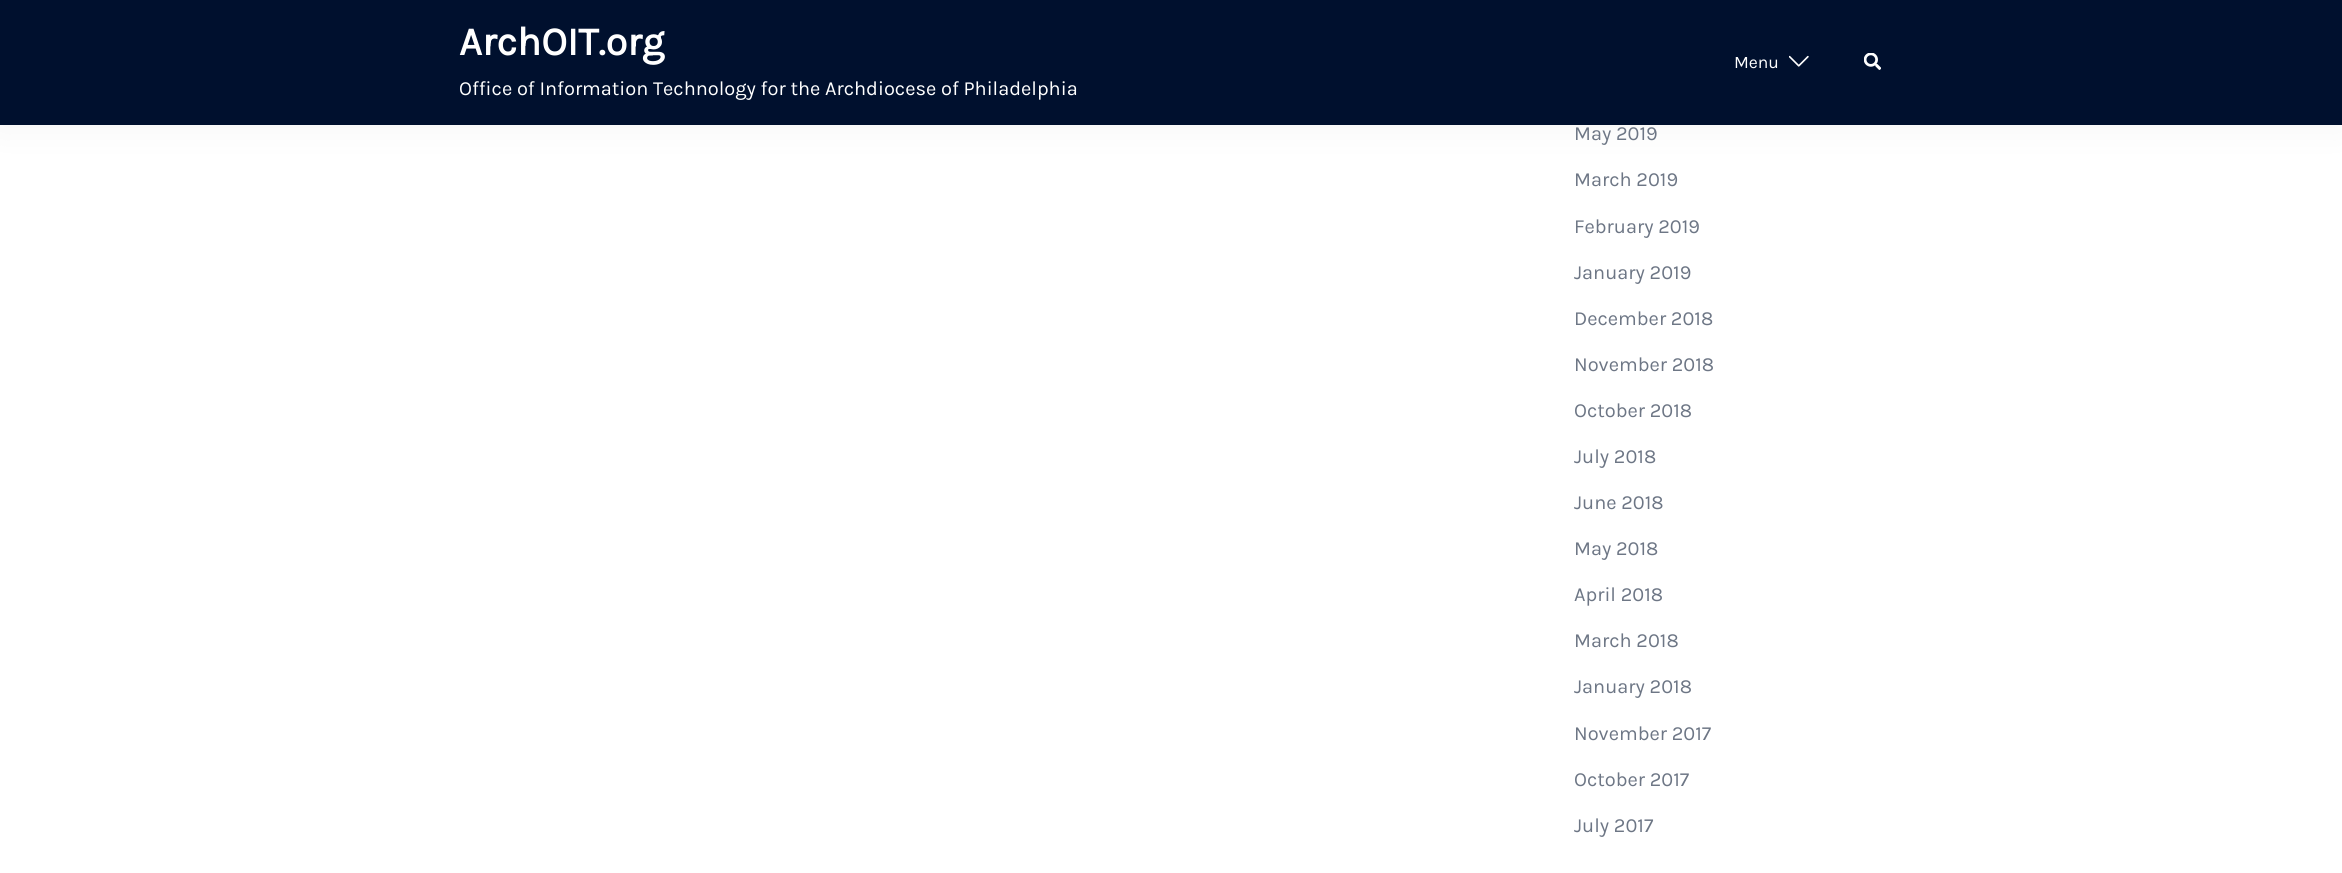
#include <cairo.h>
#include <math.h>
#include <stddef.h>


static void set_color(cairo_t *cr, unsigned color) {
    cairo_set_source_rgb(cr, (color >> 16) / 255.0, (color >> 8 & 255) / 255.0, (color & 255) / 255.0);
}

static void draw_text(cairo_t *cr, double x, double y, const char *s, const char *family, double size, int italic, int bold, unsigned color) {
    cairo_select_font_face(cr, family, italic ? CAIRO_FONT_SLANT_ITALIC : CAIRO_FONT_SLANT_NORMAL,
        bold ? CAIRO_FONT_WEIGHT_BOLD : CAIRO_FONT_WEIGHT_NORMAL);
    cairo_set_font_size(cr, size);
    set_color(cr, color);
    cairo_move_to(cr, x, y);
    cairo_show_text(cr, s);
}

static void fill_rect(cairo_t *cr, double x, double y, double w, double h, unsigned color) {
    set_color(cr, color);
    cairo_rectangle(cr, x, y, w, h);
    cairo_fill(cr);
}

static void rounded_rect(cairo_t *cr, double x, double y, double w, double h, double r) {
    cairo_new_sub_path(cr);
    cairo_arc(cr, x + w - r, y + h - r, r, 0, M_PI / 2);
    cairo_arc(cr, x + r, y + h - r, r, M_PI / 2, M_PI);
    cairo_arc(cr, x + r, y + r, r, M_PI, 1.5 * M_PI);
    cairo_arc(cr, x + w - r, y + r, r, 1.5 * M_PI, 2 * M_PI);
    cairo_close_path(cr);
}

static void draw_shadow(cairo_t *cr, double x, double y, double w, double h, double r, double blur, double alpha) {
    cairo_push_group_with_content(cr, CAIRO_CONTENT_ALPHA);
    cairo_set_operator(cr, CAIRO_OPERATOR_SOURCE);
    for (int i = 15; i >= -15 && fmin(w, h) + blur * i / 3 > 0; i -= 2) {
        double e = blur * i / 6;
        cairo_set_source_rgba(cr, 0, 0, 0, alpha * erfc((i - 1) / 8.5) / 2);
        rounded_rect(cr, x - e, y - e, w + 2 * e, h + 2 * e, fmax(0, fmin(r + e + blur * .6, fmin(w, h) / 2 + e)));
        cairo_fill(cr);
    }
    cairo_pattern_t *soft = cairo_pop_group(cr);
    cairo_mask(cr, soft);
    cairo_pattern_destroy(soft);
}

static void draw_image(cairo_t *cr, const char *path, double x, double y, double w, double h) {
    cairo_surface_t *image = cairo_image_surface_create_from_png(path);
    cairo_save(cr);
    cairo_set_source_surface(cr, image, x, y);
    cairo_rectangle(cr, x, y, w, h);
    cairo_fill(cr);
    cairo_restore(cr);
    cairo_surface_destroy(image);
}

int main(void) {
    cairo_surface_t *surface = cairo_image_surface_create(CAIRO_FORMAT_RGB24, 2342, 873);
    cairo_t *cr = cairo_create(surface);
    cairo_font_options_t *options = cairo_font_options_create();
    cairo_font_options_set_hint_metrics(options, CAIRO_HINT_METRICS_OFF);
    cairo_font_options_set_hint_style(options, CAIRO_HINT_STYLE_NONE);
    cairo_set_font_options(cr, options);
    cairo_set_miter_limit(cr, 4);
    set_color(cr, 0xFFFFFF);
    cairo_paint(cr);
    set_color(cr, 0x000000);
    draw_shadow(cr, 0, 0, 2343, 125, 0, 19, 0.05);
    fill_rect(cr, 0, 0, 2342, 125, 0x00102E);
    draw_text(cr, 459, 55, "ArchOIT.org", "Karla", 40, 0, 1, 0xFFFFFF);
    draw_text(cr, 459, 95, "Office of Information Technology for the Archdiocese of Philadelphia", "Karla", 20, 0, 0, 0xFFFFFF);
    draw_text(cr, 1734, 68, "Menu", "Karla", 17.5, 0, 0, 0xFFFFFF);
    draw_image(cr, "assets/img1.png", 1789, 55, 20, 12);
    draw_image(cr, "assets/img2.png", 1864, 53, 17, 17);
    draw_text(cr, 1574, 140, "May 2019", "Karla", 20, 0, 0, 0x6D7685);
    draw_text(cr, 1574, 186, "March 2019", "Karla", 20, 0, 0, 0x6D7685);
    draw_text(cr, 1574, 233, "February 2019", "Karla", 20, 0, 0, 0x6D7685);
    draw_text(cr, 1574, 279, "January 2019", "Karla", 20, 0, 0, 0x6D7685);
    draw_text(cr, 1574, 325, "December 2018", "Karla", 20, 0, 0, 0x6D7685);
    draw_text(cr, 1574, 371, "November 2018", "Karla", 20, 0, 0, 0x6D7685);
    draw_text(cr, 1574, 417, "October 2018", "Karla", 20, 0, 0, 0x6D7685);
    draw_text(cr, 1574, 463, "July 2018", "Karla", 20, 0, 0, 0x6D7685);
    draw_text(cr, 1574, 509, "June 2018", "Karla", 20, 0, 0, 0x6D7685);
    draw_text(cr, 1574, 555, "May 2018", "Karla", 20, 0, 0, 0x6D7685);
    draw_text(cr, 1574, 601, "April 2018", "Karla", 20, 0, 0, 0x6D7685);
    draw_text(cr, 1574, 647, "March 2018", "Karla", 20, 0, 0, 0x6D7685);
    draw_text(cr, 1574, 693, "January 2018", "Karla", 20, 0, 0, 0x6D7685);
    draw_text(cr, 1574, 740, "November 2017", "Karla", 20, 0, 0, 0x6D7685);
    draw_text(cr, 1574, 786, "October 2017", "Karla", 20, 0, 0, 0x6D7685);
    draw_text(cr, 1574, 832, "July 2017", "Karla", 20, 0, 0, 0x6D7685);
    cairo_surface_write_to_png(surface, "output.png");
    cairo_font_options_destroy(options);
    cairo_destroy(cr);
    cairo_surface_destroy(surface);
    return 0;
}
